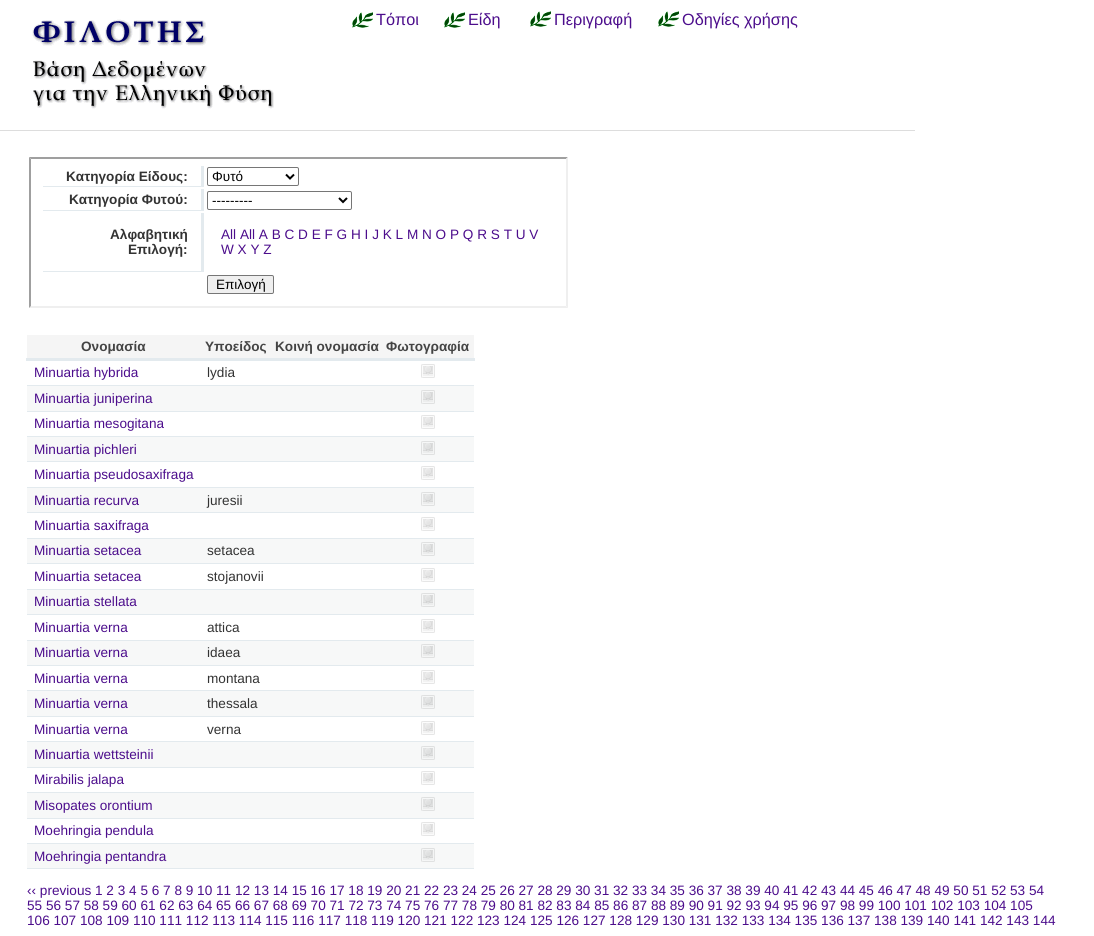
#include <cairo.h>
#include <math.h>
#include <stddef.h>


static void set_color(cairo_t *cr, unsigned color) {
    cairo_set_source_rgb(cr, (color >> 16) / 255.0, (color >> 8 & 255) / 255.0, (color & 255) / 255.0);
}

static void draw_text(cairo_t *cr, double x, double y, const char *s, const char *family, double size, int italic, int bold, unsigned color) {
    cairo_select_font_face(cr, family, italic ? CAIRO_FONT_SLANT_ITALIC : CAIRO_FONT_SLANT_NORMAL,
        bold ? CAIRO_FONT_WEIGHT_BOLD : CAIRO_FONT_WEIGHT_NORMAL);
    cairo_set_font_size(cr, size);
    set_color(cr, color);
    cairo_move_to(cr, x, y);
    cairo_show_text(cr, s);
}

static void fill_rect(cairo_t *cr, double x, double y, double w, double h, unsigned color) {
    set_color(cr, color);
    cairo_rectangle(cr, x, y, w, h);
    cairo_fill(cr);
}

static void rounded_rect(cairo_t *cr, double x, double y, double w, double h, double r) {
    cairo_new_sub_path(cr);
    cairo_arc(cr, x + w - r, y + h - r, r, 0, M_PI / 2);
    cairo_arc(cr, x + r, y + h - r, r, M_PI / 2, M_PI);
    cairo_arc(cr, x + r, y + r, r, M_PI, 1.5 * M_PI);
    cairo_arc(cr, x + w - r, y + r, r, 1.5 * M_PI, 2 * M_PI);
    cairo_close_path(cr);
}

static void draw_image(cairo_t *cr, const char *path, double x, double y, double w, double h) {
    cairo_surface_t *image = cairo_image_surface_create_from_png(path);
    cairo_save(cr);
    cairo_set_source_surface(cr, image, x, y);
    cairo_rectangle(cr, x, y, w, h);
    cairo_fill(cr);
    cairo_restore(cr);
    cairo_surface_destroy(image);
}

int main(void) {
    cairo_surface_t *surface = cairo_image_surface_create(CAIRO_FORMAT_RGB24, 1094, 936);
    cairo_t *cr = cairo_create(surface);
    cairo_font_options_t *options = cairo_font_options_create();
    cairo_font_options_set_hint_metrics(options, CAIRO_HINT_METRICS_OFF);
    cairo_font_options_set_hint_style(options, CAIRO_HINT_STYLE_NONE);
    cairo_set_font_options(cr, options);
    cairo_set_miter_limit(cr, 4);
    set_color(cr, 0xFFFFFF);
    cairo_paint(cr);
    fill_rect(cr, 0, 130, 915, 1, 0xDDDDDD);
    draw_image(cr, "assets/img1.png", 32, 19, 242, 90);
    draw_image(cr, "assets/img2.png", 352, 12, 21, 16);
    draw_text(cr, 376, 25, "Τόποι", "Liberation Sans", 16.25, 0, 0, 0x4C0D8C);
    draw_image(cr, "assets/img2.png", 444, 12, 21, 16);
    draw_text(cr, 468, 25, "Είδη", "Liberation Sans", 16.25, 0, 0, 0x4C0D8C);
    draw_image(cr, "assets/img2.png", 530, 11, 21, 16);
    draw_text(cr, 554, 25, "Περιγραφή", "Liberation Sans", 16.25, 0, 0, 0x4C0D8C);
    draw_image(cr, "assets/img2.png", 658, 11, 21, 16);
    draw_text(cr, 682, 25, "Οδηγίες χρήσης", "Liberation Sans", 16.25, 0, 0, 0x4C0D8C);
    set_color(cr, 0x9F9F9F);
    cairo_new_path(cr);
    cairo_move_to(cr, 29, 157);
    cairo_line_to(cr, 568, 157);
    cairo_line_to(cr, 566, 159);
    cairo_line_to(cr, 31, 159);
    cairo_close_path(cr);
    cairo_fill(cr);
    set_color(cr, 0xEFEFEF);
    cairo_new_path(cr);
    cairo_move_to(cr, 568, 157);
    cairo_line_to(cr, 568, 308);
    cairo_line_to(cr, 566, 306);
    cairo_line_to(cr, 566, 159);
    cairo_close_path(cr);
    cairo_fill(cr);
    cairo_new_path(cr);
    cairo_move_to(cr, 568, 308);
    cairo_line_to(cr, 29, 308);
    cairo_line_to(cr, 31, 306);
    cairo_line_to(cr, 566, 306);
    cairo_close_path(cr);
    cairo_fill(cr);
    set_color(cr, 0x9F9F9F);
    cairo_new_path(cr);
    cairo_move_to(cr, 29, 308);
    cairo_line_to(cr, 29, 157);
    cairo_line_to(cr, 31, 159);
    cairo_line_to(cr, 31, 306);
    cairo_close_path(cr);
    cairo_fill(cr);
    fill_rect(cr, 201, 166, 3, 21, 0xE3EAEE);
    fill_rect(cr, 43, 186, 161, 1, 0xE3EAEE);
    draw_text(cr, 66, 181, "Κατηγορία Είδους:", "Liberation Sans", 13.6, 0, 1, 0x333333);
    rounded_rect(cr, 207.5, 167.5, 91, 18, 1.5);
    set_color(cr, 0x767676);
    cairo_set_line_width(cr, 1);
    cairo_stroke(cr);
    cairo_new_path(cr);
    cairo_move_to(cr, 286, 174.5);
    cairo_line_to(cr, 290, 178.5);
    cairo_line_to(cr, 294, 174.5);
    set_color(cr, 0x000000);
    cairo_set_line_width(cr, 2);
    cairo_stroke(cr);
    draw_text(cr, 212, 181, "Φυτό", "Liberation Sans", 13.5, 0, 0, 0x000000);
    fill_rect(cr, 201, 189, 3, 22, 0xE3EAEE);
    fill_rect(cr, 43, 210, 161, 1, 0xE3EAEE);
    draw_text(cr, 69, 204, "Κατηγορία Φυτού:", "Liberation Sans", 13.6, 0, 1, 0x333333);
    rounded_rect(cr, 207.5, 191.5, 144, 18, 1.5);
    set_color(cr, 0x767676);
    cairo_set_line_width(cr, 1);
    cairo_stroke(cr);
    cairo_new_path(cr);
    cairo_move_to(cr, 339, 198);
    cairo_line_to(cr, 343, 202);
    cairo_line_to(cr, 347, 198);
    set_color(cr, 0x000000);
    cairo_set_line_width(cr, 2);
    cairo_stroke(cr);
    draw_text(cr, 212, 205, "---------", "Liberation Sans", 13.5, 0, 0, 0x000000);
    fill_rect(cr, 201, 213, 3, 59, 0xE3EAEE);
    fill_rect(cr, 43, 271, 161, 1, 0xE3EAEE);
    draw_text(cr, 110, 239, "Αλφαβητική", "Liberation Sans", 13.6, 0, 1, 0x333333);
    draw_text(cr, 128, 254, "Επιλογή:", "Liberation Sans", 13.6, 0, 1, 0x333333);
    draw_text(cr, 221, 239, "All All A B C D E F G H I J K L M N O P Q R S T U V", "Liberation Sans", 13.6, 0, 0, 0x4C0D8C);
    draw_text(cr, 221, 254, "W X Y Z", "Liberation Sans", 13.6, 0, 0, 0x4C0D8C);
    set_color(cr, 0xEFEFEF);
    rounded_rect(cr, 207.5, 275.5, 66, 18, 1.5);
    cairo_fill_preserve(cr);
    set_color(cr, 0x767676);
    cairo_set_line_width(cr, 1);
    cairo_stroke(cr);
    draw_text(cr, 216, 289, "Επιλογή", "Liberation Sans", 13.5, 0, 0, 0x000000);
    fill_rect(cr, 27, 335, 447, 23, 0xF5F5F5);
    draw_text(cr, 81, 351, "Ονομασία", "Liberation Sans", 13.6, 0, 1, 0x444444);
    draw_text(cr, 205, 351, "Υποείδος", "Liberation Sans", 13.6, 0, 1, 0x444444);
    draw_text(cr, 275, 351, "Κοινή ονομασία", "Liberation Sans", 13.6, 0, 1, 0x444444);
    fill_rect(cr, 26, 358, 449, 3, 0xE3EAEE);
    draw_text(cr, 386, 351, "Φωτογραφία", "Liberation Sans", 13.6, 0, 1, 0x444444);
    fill_rect(cr, 27, 385, 447, 1, 0xE3EAEE);
    draw_image(cr, "assets/img3.png", 421, 364, 14, 14);
    draw_text(cr, 34, 377, "Minuartia hybrida", "Liberation Sans", 13.6, 0, 0, 0x4C0D8C);
    draw_text(cr, 207, 377, "lydia", "Liberation Sans", 13.6, 0, 0, 0x333333);
    fill_rect(cr, 27, 411, 447, 1, 0xE3EAEE);
    fill_rect(cr, 27, 386, 447, 25, 0xF7F8F8);
    draw_image(cr, "assets/img4.png", 421, 390, 14, 14);
    draw_text(cr, 34, 403, "Minuartia juniperina", "Liberation Sans", 13.6, 0, 0, 0x4C0D8C);
    fill_rect(cr, 27, 436, 447, 1, 0xE3EAEE);
    draw_image(cr, "assets/img3.png", 421, 415, 14, 14);
    draw_text(cr, 34, 428, "Minuartia mesogitana", "Liberation Sans", 13.6, 0, 0, 0x4C0D8C);
    fill_rect(cr, 27, 461, 447, 1, 0xE3EAEE);
    fill_rect(cr, 27, 437, 447, 24, 0xF7F8F8);
    draw_image(cr, "assets/img4.png", 421, 441, 14, 14);
    draw_text(cr, 34, 454, "Minuartia pichleri", "Liberation Sans", 13.6, 0, 0, 0x4C0D8C);
    fill_rect(cr, 27, 487, 447, 1, 0xE3EAEE);
    draw_image(cr, "assets/img3.png", 421, 466, 14, 14);
    draw_text(cr, 34, 479, "Minuartia pseudosaxifraga", "Liberation Sans", 13.6, 0, 0, 0x4C0D8C);
    fill_rect(cr, 27, 512, 447, 1, 0xE3EAEE);
    fill_rect(cr, 27, 488, 447, 24, 0xF7F8F8);
    draw_image(cr, "assets/img4.png", 421, 492, 14, 14);
    draw_text(cr, 34, 505, "Minuartia recurva", "Liberation Sans", 13.6, 0, 0, 0x4C0D8C);
    draw_text(cr, 207, 505, "juresii", "Liberation Sans", 13.6, 0, 0, 0x333333);
    fill_rect(cr, 27, 538, 447, 1, 0xE3EAEE);
    draw_image(cr, "assets/img3.png", 421, 517, 14, 14);
    draw_text(cr, 34, 530, "Minuartia saxifraga", "Liberation Sans", 13.6, 0, 0, 0x4C0D8C);
    fill_rect(cr, 27, 563, 447, 1, 0xE3EAEE);
    fill_rect(cr, 27, 539, 447, 24, 0xF7F8F8);
    draw_image(cr, "assets/img4.png", 421, 542, 14, 14);
    draw_text(cr, 34, 555, "Minuartia setacea", "Liberation Sans", 13.6, 0, 0, 0x4C0D8C);
    draw_text(cr, 207, 555, "setacea", "Liberation Sans", 13.6, 0, 0, 0x333333);
    fill_rect(cr, 27, 589, 447, 1, 0xE3EAEE);
    draw_image(cr, "assets/img3.png", 421, 568, 14, 14);
    draw_text(cr, 34, 581, "Minuartia setacea", "Liberation Sans", 13.6, 0, 0, 0x4C0D8C);
    draw_text(cr, 207, 581, "stojanovii", "Liberation Sans", 13.6, 0, 0, 0x333333);
    fill_rect(cr, 27, 614, 447, 1, 0xE3EAEE);
    fill_rect(cr, 27, 590, 447, 24, 0xF7F8F8);
    draw_image(cr, "assets/img4.png", 421, 593, 14, 14);
    draw_text(cr, 34, 606, "Minuartia stellata", "Liberation Sans", 13.6, 0, 0, 0x4C0D8C);
    fill_rect(cr, 27, 640, 447, 1, 0xE3EAEE);
    draw_image(cr, "assets/img3.png", 421, 619, 14, 14);
    draw_text(cr, 34, 632, "Minuartia verna", "Liberation Sans", 13.6, 0, 0, 0x4C0D8C);
    draw_text(cr, 207, 632, "attica", "Liberation Sans", 13.6, 0, 0, 0x333333);
    fill_rect(cr, 27, 665, 447, 1, 0xE3EAEE);
    fill_rect(cr, 27, 641, 447, 24, 0xF7F8F8);
    draw_image(cr, "assets/img4.png", 421, 644, 14, 14);
    draw_text(cr, 34, 657, "Minuartia verna", "Liberation Sans", 13.6, 0, 0, 0x4C0D8C);
    draw_text(cr, 207, 657, "idaea", "Liberation Sans", 13.6, 0, 0, 0x333333);
    fill_rect(cr, 27, 690, 447, 1, 0xE3EAEE);
    draw_image(cr, "assets/img3.png", 421, 670, 14, 14);
    draw_text(cr, 34, 683, "Minuartia verna", "Liberation Sans", 13.6, 0, 0, 0x4C0D8C);
    draw_text(cr, 207, 683, "montana", "Liberation Sans", 13.6, 0, 0, 0x333333);
    fill_rect(cr, 27, 716, 447, 1, 0xE3EAEE);
    fill_rect(cr, 27, 691, 447, 25, 0xF7F8F8);
    draw_image(cr, "assets/img4.png", 421, 695, 14, 14);
    draw_text(cr, 34, 708, "Minuartia verna", "Liberation Sans", 13.6, 0, 0, 0x4C0D8C);
    draw_text(cr, 207, 708, "thessala", "Liberation Sans", 13.6, 0, 0, 0x333333);
    fill_rect(cr, 27, 741, 447, 1, 0xE3EAEE);
    draw_image(cr, "assets/img3.png", 421, 721, 14, 14);
    draw_text(cr, 34, 734, "Minuartia verna", "Liberation Sans", 13.6, 0, 0, 0x4C0D8C);
    draw_text(cr, 207, 734, "verna", "Liberation Sans", 13.6, 0, 0, 0x333333);
    fill_rect(cr, 27, 767, 447, 1, 0xE3EAEE);
    fill_rect(cr, 27, 742, 447, 25, 0xF7F8F8);
    draw_image(cr, "assets/img4.png", 421, 746, 14, 14);
    draw_text(cr, 34, 759, "Minuartia wettsteinii", "Liberation Sans", 13.6, 0, 0, 0x4C0D8C);
    fill_rect(cr, 27, 792, 447, 1, 0xE3EAEE);
    draw_image(cr, "assets/img3.png", 421, 771, 14, 14);
    draw_text(cr, 34, 784, "Mirabilis jalapa", "Liberation Sans", 13.6, 0, 0, 0x4C0D8C);
    fill_rect(cr, 27, 818, 447, 1, 0xE3EAEE);
    fill_rect(cr, 27, 793, 447, 25, 0xF7F8F8);
    draw_image(cr, "assets/img4.png", 421, 797, 14, 14);
    draw_text(cr, 34, 810, "Misopates orontium", "Liberation Sans", 13.6, 0, 0, 0x4C0D8C);
    fill_rect(cr, 27, 843, 447, 1, 0xE3EAEE);
    draw_image(cr, "assets/img3.png", 421, 822, 14, 14);
    draw_text(cr, 34, 835, "Moehringia pendula", "Liberation Sans", 13.6, 0, 0, 0x4C0D8C);
    fill_rect(cr, 27, 868, 447, 1, 0xE3EAEE);
    fill_rect(cr, 27, 844, 447, 24, 0xF7F8F8);
    draw_image(cr, "assets/img4.png", 421, 848, 14, 14);
    draw_text(cr, 34, 861, "Moehringia pentandra", "Liberation Sans", 13.6, 0, 0, 0x4C0D8C);
    draw_text(cr, 27, 895, "‹‹ previous 1 2 3 4 5 6 7 8 9 10 11 12 13 14 15 16 17 18 19 20 21 22 23 24 25 26 27 28 29 30 31 32 33 34 35 36 37 38 39 40 41 42 43 44 45 46 47 48 49 50 51 52 53 54", "Liberation Sans", 13.6, 0, 0, 0x4C0D8C);
    draw_text(cr, 27, 910, "55 56 57 58 59 60 61 62 63 64 65 66 67 68 69 70 71 72 73 74 75 76 77 78 79 80 81 82 83 84 85 86 87 88 89 90 91 92 93 94 95 96 97 98 99 100 101 102 103 104 105", "Liberation Sans", 13.6, 0, 0, 0x4C0D8C);
    draw_text(cr, 27, 925, "106 107 108 109 110 111 112 113 114 115 116 117 118 119 120 121 122 123 124 125 126 127 128 129 130 131 132 133 134 135 136 137 138 139 140 141 142 143 144", "Liberation Sans", 13.6, 0, 0, 0x4C0D8C);
    cairo_surface_write_to_png(surface, "output.png");
    cairo_font_options_destroy(options);
    cairo_destroy(cr);
    cairo_surface_destroy(surface);
    return 0;
}
